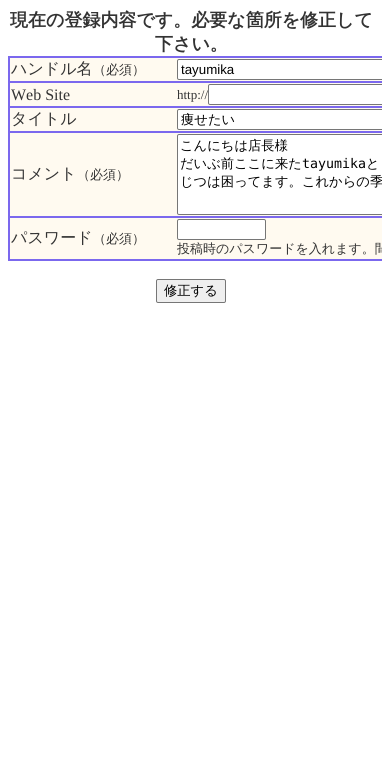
#include <cairo.h>
#include <math.h>
#include <stddef.h>


static void set_color(cairo_t *cr, unsigned color) {
    cairo_set_source_rgb(cr, (color >> 16) / 255.0, (color >> 8 & 255) / 255.0, (color & 255) / 255.0);
}

static void draw_text(cairo_t *cr, double x, double y, const char *s, const char *family, double size, int italic, int bold, unsigned color) {
    cairo_select_font_face(cr, family, italic ? CAIRO_FONT_SLANT_ITALIC : CAIRO_FONT_SLANT_NORMAL,
        bold ? CAIRO_FONT_WEIGHT_BOLD : CAIRO_FONT_WEIGHT_NORMAL);
    cairo_set_font_size(cr, size);
    set_color(cr, color);
    cairo_move_to(cr, x, y);
    cairo_show_text(cr, s);
}

static void fill_rect(cairo_t *cr, double x, double y, double w, double h, unsigned color) {
    set_color(cr, color);
    cairo_rectangle(cr, x, y, w, h);
    cairo_fill(cr);
}

static void rounded_rect(cairo_t *cr, double x, double y, double w, double h, double r) {
    cairo_new_sub_path(cr);
    cairo_arc(cr, x + w - r, y + h - r, r, 0, M_PI / 2);
    cairo_arc(cr, x + r, y + h - r, r, M_PI / 2, M_PI);
    cairo_arc(cr, x + r, y + r, r, M_PI, 1.5 * M_PI);
    cairo_arc(cr, x + w - r, y + r, r, 1.5 * M_PI, 2 * M_PI);
    cairo_close_path(cr);
}

int main(void) {
    cairo_surface_t *surface = cairo_image_surface_create(CAIRO_FORMAT_RGB24, 382, 759);
    cairo_t *cr = cairo_create(surface);
    cairo_font_options_t *options = cairo_font_options_create();
    cairo_font_options_set_hint_metrics(options, CAIRO_HINT_METRICS_OFF);
    cairo_font_options_set_hint_style(options, CAIRO_HINT_STYLE_NONE);
    cairo_set_font_options(cr, options);
    cairo_set_miter_limit(cr, 4);
    set_color(cr, 0xFFFFFF);
    cairo_paint(cr);
    draw_text(cr, 10, 26, "現在の登録内容です。必要な箇所を修正して", "WenQuanYi Zen Hei", 18, 0, 1, 0x333333);
    draw_text(cr, 155, 50, "下さい。", "WenQuanYi Zen Hei", 18, 0, 1, 0x333333);
    fill_rect(cr, 8, 56, 374, 205, 0x7B68EE);
    fill_rect(cr, 10, 58, 372, 23, 0xFFFAF0);
    draw_text(cr, 11, 74, "ハンドル名", "WenQuanYi Zen Hei Medium", 16, 0, 0, 0x333333);
    draw_text(cr, 93, 74, "（必須）", "WenQuanYi Zen Hei Medium", 13, 0, 0, 0x333333);
    set_color(cr, 0xFFFFFF);
    rounded_rect(cr, 177.5, 59.5, 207, 20, 1.5);
    cairo_fill_preserve(cr);
    set_color(cr, 0x767676);
    cairo_set_line_width(cr, 1);
    cairo_stroke(cr);
    draw_text(cr, 181, 74, "tayumika", "Liberation Sans", 13.3, 0, 0, 0x000000);
    fill_rect(cr, 10, 83, 372, 23, 0xFFFAF0);
    draw_text(cr, 11, 100, "Web Site", "Liberation Serif", 16, 0, 0, 0x333333);
    draw_text(cr, 177, 99, "http://", "Liberation Serif", 13, 0, 0, 0x333333);
    set_color(cr, 0xFFFFFF);
    rounded_rect(cr, 208.5, 84.5, 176, 20, 1.5);
    cairo_fill_preserve(cr);
    set_color(cr, 0x767676);
    cairo_stroke(cr);
    fill_rect(cr, 10, 108, 372, 23, 0xFFFAF0);
    draw_text(cr, 11, 124, "タイトル", "WenQuanYi Zen Hei Medium", 16, 0, 0, 0x333333);
    set_color(cr, 0xFFFFFF);
    rounded_rect(cr, 177.5, 109.5, 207, 20, 1.5);
    cairo_fill_preserve(cr);
    set_color(cr, 0x767676);
    cairo_stroke(cr);
    draw_text(cr, 181, 124, "痩せたい", "WenQuanYi Zen Hei Medium", 13.3, 0, 0, 0x000000);
    fill_rect(cr, 10, 133, 372, 83, 0xFFFAF0);
    draw_text(cr, 11, 179, "コメント", "WenQuanYi Zen Hei Medium", 16, 0, 0, 0x333333);
    draw_text(cr, 77, 179, "（必須）", "WenQuanYi Zen Hei Medium", 13, 0, 0, 0x333333);
    set_color(cr, 0xFFFFFF);
    rounded_rect(cr, 177.5, 134.5, 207, 80, 1.5);
    cairo_fill_preserve(cr);
    set_color(cr, 0x767676);
    cairo_stroke(cr);
    draw_text(cr, 180, 150, "こんにちは店長様", "WenQuanYi Zen Hei Medium", 13.3, 0, 0, 0x000000);
    draw_text(cr, 180, 168, "だいぶ前ここに来た", "WenQuanYi Zen Hei Medium", 13.3, 0, 0, 0x000000);
    draw_text(cr, 302, 168, "tayumika", "DejaVu Sans Mono", 13.3, 0, 0, 0x000000);
    draw_text(cr, 366, 168, "と", "WenQuanYi Zen Hei Medium", 13.3, 0, 0, 0x000000);
    draw_text(cr, 180, 186, "じつは困ってます。これからの季", "WenQuanYi Zen Hei Medium", 13.3, 0, 0, 0x000000);
    fill_rect(cr, 10, 218, 372, 41, 0xFFFAF0);
    draw_text(cr, 11, 243, "パスワード", "WenQuanYi Zen Hei Medium", 16, 0, 0, 0x333333);
    draw_text(cr, 93, 243, "（必須）", "WenQuanYi Zen Hei Medium", 13, 0, 0, 0x333333);
    set_color(cr, 0xFFFFFF);
    rounded_rect(cr, 177.5, 219.5, 88, 20, 1.5);
    cairo_fill_preserve(cr);
    set_color(cr, 0x767676);
    cairo_stroke(cr);
    draw_text(cr, 177, 253, "投稿時のパスワードを入れます。間", "WenQuanYi Zen Hei Medium", 13, 0, 0, 0x333333);
    set_color(cr, 0xEFEFEF);
    rounded_rect(cr, 156.5, 279.5, 69, 23, 1.5);
    cairo_fill_preserve(cr);
    set_color(cr, 0x767676);
    cairo_stroke(cr);
    draw_text(cr, 164, 295, "修正する", "WenQuanYi Zen Hei Medium", 13.3, 0, 0, 0x000000);
    cairo_surface_write_to_png(surface, "output.png");
    cairo_font_options_destroy(options);
    cairo_destroy(cr);
    cairo_surface_destroy(surface);
    return 0;
}
